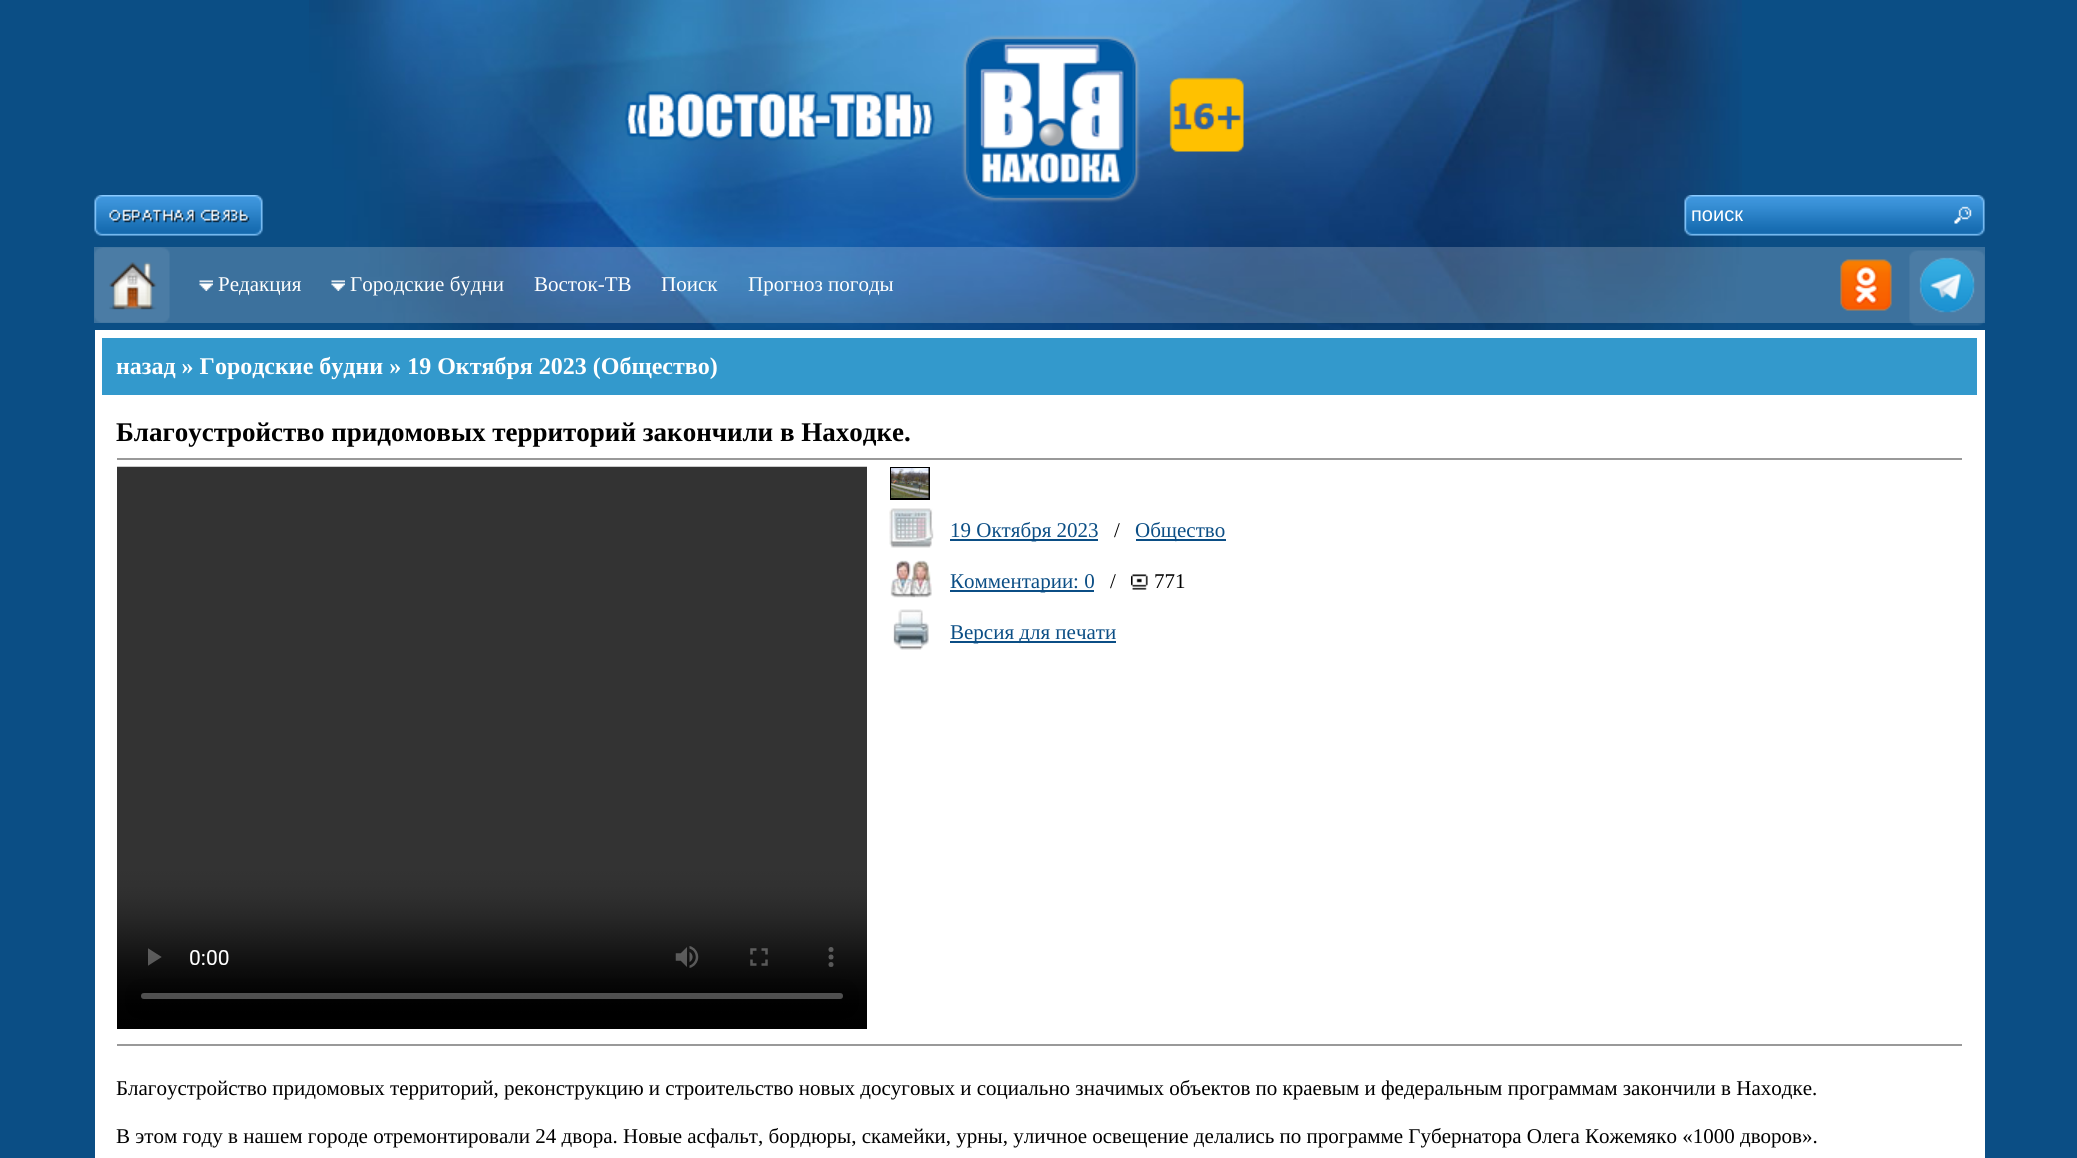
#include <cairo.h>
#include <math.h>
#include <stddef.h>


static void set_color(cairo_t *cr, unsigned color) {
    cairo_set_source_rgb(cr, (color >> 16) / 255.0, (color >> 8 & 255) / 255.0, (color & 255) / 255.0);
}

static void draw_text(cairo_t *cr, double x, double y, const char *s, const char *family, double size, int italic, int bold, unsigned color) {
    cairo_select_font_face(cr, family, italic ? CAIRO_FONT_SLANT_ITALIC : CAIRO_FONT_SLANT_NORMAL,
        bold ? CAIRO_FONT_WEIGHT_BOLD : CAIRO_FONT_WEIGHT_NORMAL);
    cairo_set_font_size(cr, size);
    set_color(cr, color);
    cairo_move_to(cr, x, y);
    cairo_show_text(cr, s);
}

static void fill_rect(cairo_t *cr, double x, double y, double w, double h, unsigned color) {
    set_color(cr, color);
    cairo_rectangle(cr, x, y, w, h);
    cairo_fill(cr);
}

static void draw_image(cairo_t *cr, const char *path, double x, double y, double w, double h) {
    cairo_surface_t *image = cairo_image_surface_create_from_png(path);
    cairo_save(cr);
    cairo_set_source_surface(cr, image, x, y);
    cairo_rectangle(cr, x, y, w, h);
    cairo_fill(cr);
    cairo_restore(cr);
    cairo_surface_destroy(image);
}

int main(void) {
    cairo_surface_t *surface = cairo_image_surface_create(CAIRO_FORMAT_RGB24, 2077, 1158);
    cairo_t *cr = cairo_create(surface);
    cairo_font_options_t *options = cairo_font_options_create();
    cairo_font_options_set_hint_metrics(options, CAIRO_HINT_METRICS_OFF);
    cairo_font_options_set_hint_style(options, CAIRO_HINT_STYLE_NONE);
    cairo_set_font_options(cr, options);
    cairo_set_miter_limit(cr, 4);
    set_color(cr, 0x0B4E85);
    cairo_paint(cr);
    draw_image(cr, "assets/img1.png", 309, 0, 1433, 330);
    draw_image(cr, "assets/img2.png", 624, 35, 620, 168);
    draw_image(cr, "assets/img3.png", 94, 195, 169, 41);
    draw_image(cr, "assets/img4.png", 1684, 195, 301, 41);
    draw_text(cr, 1691, 221, "поиск", "Liberation Sans", 20, 0, 0, 0xFFFFFF);
    cairo_set_source_rgba(cr, 1, 1, 1, 0.2);
    cairo_rectangle(cr, 94, 247, 1891, 76);
    cairo_fill(cr);
    draw_image(cr, "assets/img5.png", 94, 247, 76, 76);
    draw_image(cr, "assets/img6.png", 109, 262, 48, 48);
    draw_image(cr, "assets/img7.png", 199, 280, 14, 11);
    draw_text(cr, 218, 291, "Редакция", "Liberation Serif", 21, 0, 0, 0xFFFFFF);
    draw_image(cr, "assets/img7.png", 331, 280, 14, 11);
    draw_text(cr, 350, 291, "Городские будни", "Liberation Serif", 21, 0, 0, 0xFFFFFF);
    draw_text(cr, 534, 291, "Восток-ТВ", "Liberation Serif", 21, 0, 0, 0xFFFFFF);
    draw_text(cr, 661, 291, "Поиск", "Liberation Serif", 21, 0, 0, 0xFFFFFF);
    draw_text(cr, 748, 291, "Прогноз погоды", "Liberation Serif", 21, 0, 0, 0xFFFFFF);
    draw_image(cr, "assets/img8.png", 1909, 250, 76, 76);
    draw_image(cr, "assets/img9.png", 1840, 259, 52, 52);
    draw_image(cr, "assets/img10.png", 1919, 257, 56, 56);
    fill_rect(cr, 95, 330, 1890, 828, 0xFFFFFF);
    fill_rect(cr, 102, 338, 1875, 57, 0x3399CC);
    draw_text(cr, 116, 374, "назад » Городские будни » 19 Октября 2023 (Общество)", "Liberation Serif", 24, 0, 1, 0xFFFFFF);
    draw_text(cr, 116, 441, "Благоустройство придомовых территорий закончили в Находке.", "Liberation Serif", 27, 0, 1, 0x000000);
    fill_rect(cr, 117, 458, 1845, 2, 0x999999);
    draw_image(cr, "assets/img11.png", 117, 466, 750, 563);
    cairo_rectangle(cr, 891, 468, 38, 31);
    set_color(cr, 0x000000);
    cairo_stroke(cr);
    draw_image(cr, "assets/img12.png", 891, 468, 38, 30);
    draw_image(cr, "assets/img13.png", 889, 508, 45, 40);
    fill_rect(cr, 950, 539, 148, 2, 0x0B4E85);
    draw_text(cr, 950, 537, "19 Октября 2023", "Liberation Serif", 21, 0, 0, 0x0B4E85);
    draw_text(cr, 1114, 537, "/", "Liberation Serif", 21, 0, 0, 0x000000);
    fill_rect(cr, 1136, 539, 90, 2, 0x0B4E85);
    draw_text(cr, 1135, 537, "Общество", "Liberation Serif", 21, 0, 0, 0x0B4E85);
    draw_image(cr, "assets/img14.png", 890, 560, 42, 38);
    fill_rect(cr, 950, 590, 144, 2, 0x0B4E85);
    draw_text(cr, 950, 588, "Комментарии: 0", "Liberation Serif", 21, 0, 0, 0x0B4E85);
    draw_text(cr, 1110, 588, "/", "Liberation Serif", 21, 0, 0, 0x000000);
    draw_image(cr, "assets/img15.png", 1131, 574, 17, 16);
    draw_text(cr, 1154, 588, "771", "Liberation Serif", 21, 0, 0, 0x000000);
    draw_image(cr, "assets/img16.png", 893, 609, 36, 41);
    fill_rect(cr, 950, 641, 166, 2, 0x0B4E85);
    draw_text(cr, 950, 639, "Версия для печати", "Liberation Serif", 21, 0, 0, 0x0B4E85);
    fill_rect(cr, 117, 1044, 1845, 2, 0x999999);
    draw_text(cr, 116, 1095, "Благоустройство придомовых территорий, реконструкцию и строительство новых досуговых и социально значимых объектов по краевым и федеральным программам закончили в Находке.", "Liberation Serif", 21, 0, 0, 0x000000);
    draw_text(cr, 116, 1143, "В этом году в нашем городе отремонтировали 24 двора. Новые асфальт, бордюры, скамейки, урны, уличное освещение делались по программе Губернатора Олега Кожемяко «1000 дворов».", "Liberation Serif", 21, 0, 0, 0x000000);
    cairo_surface_write_to_png(surface, "output.png");
    cairo_font_options_destroy(options);
    cairo_destroy(cr);
    cairo_surface_destroy(surface);
    return 0;
}
